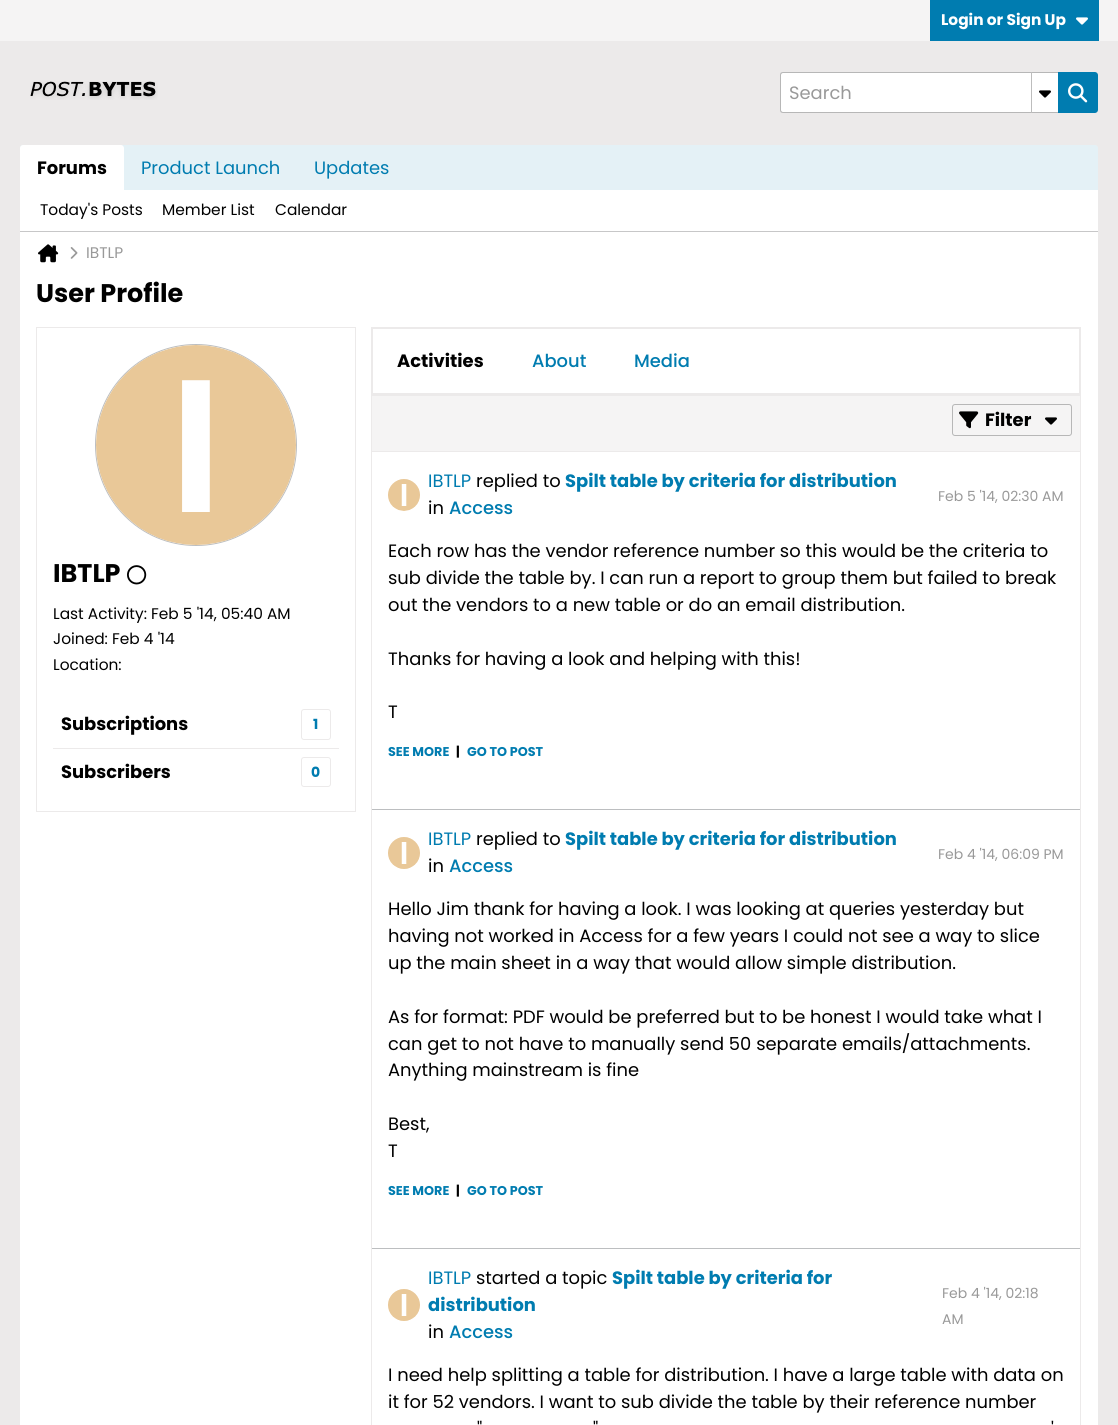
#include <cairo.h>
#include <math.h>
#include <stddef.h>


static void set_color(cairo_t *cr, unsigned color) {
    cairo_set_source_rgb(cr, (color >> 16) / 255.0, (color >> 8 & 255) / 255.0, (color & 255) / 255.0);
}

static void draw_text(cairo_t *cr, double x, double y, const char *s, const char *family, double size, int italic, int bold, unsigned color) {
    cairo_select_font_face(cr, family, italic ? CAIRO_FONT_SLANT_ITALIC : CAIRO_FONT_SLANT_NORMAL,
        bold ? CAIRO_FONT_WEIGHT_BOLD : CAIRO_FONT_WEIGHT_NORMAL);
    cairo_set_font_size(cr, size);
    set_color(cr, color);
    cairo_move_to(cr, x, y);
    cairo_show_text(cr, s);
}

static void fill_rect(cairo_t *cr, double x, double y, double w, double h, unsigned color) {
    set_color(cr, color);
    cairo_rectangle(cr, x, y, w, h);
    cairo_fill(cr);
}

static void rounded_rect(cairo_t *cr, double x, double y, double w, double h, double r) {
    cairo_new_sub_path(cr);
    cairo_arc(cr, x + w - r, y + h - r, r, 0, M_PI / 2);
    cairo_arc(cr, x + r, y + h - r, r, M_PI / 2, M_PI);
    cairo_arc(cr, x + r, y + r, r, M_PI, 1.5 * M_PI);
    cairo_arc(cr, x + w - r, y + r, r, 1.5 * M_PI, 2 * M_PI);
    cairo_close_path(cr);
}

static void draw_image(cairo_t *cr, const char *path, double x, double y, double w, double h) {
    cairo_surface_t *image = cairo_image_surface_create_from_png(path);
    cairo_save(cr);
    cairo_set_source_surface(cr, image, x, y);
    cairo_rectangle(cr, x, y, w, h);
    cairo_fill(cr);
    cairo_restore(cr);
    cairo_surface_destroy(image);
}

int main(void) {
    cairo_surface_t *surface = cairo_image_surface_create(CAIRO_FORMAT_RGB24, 1118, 1425);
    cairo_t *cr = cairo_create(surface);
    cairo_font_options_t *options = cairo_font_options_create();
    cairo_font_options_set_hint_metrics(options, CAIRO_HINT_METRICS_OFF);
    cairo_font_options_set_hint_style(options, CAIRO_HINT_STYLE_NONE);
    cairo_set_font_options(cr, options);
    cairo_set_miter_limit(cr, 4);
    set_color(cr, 0xECEAEA);
    cairo_paint(cr);
    fill_rect(cr, 0, 0, 1118, 41, 0xF5F4F4);
    fill_rect(cr, 930, 0, 169, 41, 0x007CB0);
    draw_text(cr, 941, 25, "Login or Sign Up", "Poppins", 15.4, 0, 1, 0xFFFFFF);
    draw_image(cr, "assets/img1.png", 1076, 17, 12, 8);
    draw_image(cr, "assets/img2.png", 30, 81, 128, 19);
    cairo_new_path(cr);
    cairo_move_to(cr, 783, 72);
    cairo_line_to(cr, 1058, 72);
    cairo_line_to(cr, 1058, 113);
    cairo_line_to(cr, 783, 113);
    cairo_curve_to(cr, 781.5, 113, 780, 111.5, 780, 110);
    cairo_line_to(cr, 780, 75);
    cairo_curve_to(cr, 780, 73.5, 781.5, 72, 783, 72);
    cairo_close_path(cr);
    cairo_fill(cr);
    set_color(cr, 0xB7B7B7);
    cairo_set_fill_rule(cr, CAIRO_FILL_RULE_EVEN_ODD);
    cairo_new_path(cr);
    cairo_move_to(cr, 783, 72);
    cairo_line_to(cr, 1058, 72);
    cairo_line_to(cr, 1058, 113);
    cairo_line_to(cr, 783, 113);
    cairo_curve_to(cr, 781, 113, 780, 112, 780, 110);
    cairo_line_to(cr, 780, 75);
    cairo_curve_to(cr, 780, 73, 781, 72, 783, 72);
    cairo_close_path(cr);
    cairo_move_to(cr, 783, 73);
    cairo_line_to(cr, 1058, 73);
    cairo_line_to(cr, 1058, 112);
    cairo_line_to(cr, 783, 112);
    cairo_curve_to(cr, 782, 112, 781, 111, 781, 110);
    cairo_line_to(cr, 781, 75);
    cairo_curve_to(cr, 781, 74, 782, 73, 783, 73);
    cairo_close_path(cr);
    cairo_fill(cr);
    draw_text(cr, 789, 99, "Search", "Poppins", 17.9, 0, 0, 0x999999);
    fill_rect(cr, 1031, 72, 1, 41, 0xBDBDBD);
    draw_image(cr, "assets/img3.png", 1039, 90, 12, 8);
    set_color(cr, 0x007CB0);
    cairo_new_path(cr);
    cairo_move_to(cr, 1058, 72);
    cairo_line_to(cr, 1095, 72);
    cairo_curve_to(cr, 1096.5, 72, 1098, 73.5, 1098, 75);
    cairo_line_to(cr, 1098, 110);
    cairo_curve_to(cr, 1098, 111.5, 1096.5, 113, 1095, 113);
    cairo_line_to(cr, 1058, 113);
    cairo_close_path(cr);
    cairo_fill(cr);
    draw_image(cr, "assets/img4.png", 1068, 83, 20, 20);
    set_color(cr, 0xE4F1F6);
    cairo_new_path(cr);
    cairo_move_to(cr, 23, 145);
    cairo_line_to(cr, 1095, 145);
    cairo_curve_to(cr, 1096.5, 145, 1098, 146.5, 1098, 148);
    cairo_line_to(cr, 1098, 190);
    cairo_line_to(cr, 20, 190);
    cairo_line_to(cr, 20, 148);
    cairo_curve_to(cr, 20, 146.5, 21.5, 145, 23, 145);
    cairo_close_path(cr);
    cairo_fill(cr);
    set_color(cr, 0xFFFFFF);
    cairo_new_path(cr);
    cairo_move_to(cr, 23, 145);
    cairo_line_to(cr, 121, 145);
    cairo_curve_to(cr, 122.5, 145, 124, 146.5, 124, 148);
    cairo_line_to(cr, 124, 190);
    cairo_line_to(cr, 20, 190);
    cairo_line_to(cr, 20, 148);
    cairo_curve_to(cr, 20, 146.5, 21.5, 145, 23, 145);
    cairo_close_path(cr);
    cairo_fill(cr);
    draw_text(cr, 37, 174, "Forums", "Poppins", 17.9, 0, 1, 0x000000);
    draw_text(cr, 141, 174, "Product Launch", "Poppins", 17.9, 0, 0, 0x007CB0);
    draw_text(cr, 314, 174, "Updates", "Poppins", 17.9, 0, 0, 0x007CB0);
    fill_rect(cr, 20, 190, 1078, 41, 0xFFFFFF);
    fill_rect(cr, 20, 231, 1078, 1, 0xC7C7C8);
    draw_text(cr, 40, 215, "Today's Posts", "Poppins", 15.4, 0, 0, 0x000000);
    draw_text(cr, 162, 215, "Member List", "Poppins", 15.4, 0, 0, 0x000000);
    draw_text(cr, 275, 215, "Calendar", "Poppins", 15.4, 0, 0, 0x000000);
    fill_rect(cr, 20, 232, 1078, 1193, 0xFFFFFF);
    draw_image(cr, "assets/img5.png", 38, 244, 21, 19);
    draw_image(cr, "assets/img6.png", 70, 247, 8, 12);
    draw_text(cr, 86, 258, "IBTLP", "Poppins", 15.4, 0, 0, 0x999999);
    draw_text(cr, 36, 302, "User Profile", "Poppins", 25.5, 0, 1, 0x000000);
    cairo_rectangle(cr, 36.5, 327.5, 319, 484);
    set_color(cr, 0xECEAEA);
    cairo_set_line_width(cr, 1);
    cairo_stroke(cr);
    cairo_arc(cr, 196, 445, 100.5, 0, 2 * M_PI);
    set_color(cr, 0xBCBEC0);
    cairo_stroke(cr);
    draw_image(cr, "assets/img7.png", 96, 345, 200, 200);
    draw_text(cr, 53, 582, "IBTLP", "Poppins", 25.5, 0, 1, 0x000000);
    draw_image(cr, "assets/img8.png", 127, 565, 20, 20);
    draw_text(cr, 53, 619, "Last Activity: Feb 5 '14, 05:40 AM", "Poppins", 15.4, 0, 0, 0x000000);
    draw_text(cr, 53, 644, "Joined: Feb 4 '14", "Poppins", 15.4, 0, 0, 0x000000);
    draw_text(cr, 53, 670, "Location:", "Poppins", 15.4, 0, 0, 0x000000);
    fill_rect(cr, 53, 748, 286, 1, 0xECEAEA);
    draw_text(cr, 61, 730, "Subscriptions", "Poppins", 17.9, 0, 1, 0x000000);
    rounded_rect(cr, 301.5, 709.5, 29, 30, 2.5);
    set_color(cr, 0xECEAEA);
    cairo_stroke(cr);
    draw_text(cr, 313, 729, "1", "Poppins", 14, 0, 1, 0x007CB0);
    draw_text(cr, 61, 778, "Subscribers", "Poppins", 17.9, 0, 1, 0x000000);
    rounded_rect(cr, 301.5, 757.5, 29, 29, 2.5);
    set_color(cr, 0xECEAEA);
    cairo_stroke(cr);
    draw_text(cr, 311, 777, "0", "Poppins", 14, 0, 1, 0x007CB0);
    cairo_rectangle(cr, 371.5, 327.5, 709, 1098);
    set_color(cr, 0xECEAEA);
    cairo_stroke(cr);
    fill_rect(cr, 372, 328, 708, 1, 0xECEAEA);
    fill_rect(cr, 1079, 328, 1, 67, 0xECEAEA);
    fill_rect(cr, 372, 393, 708, 3, 0xECEAEA);
    fill_rect(cr, 372, 328, 1, 67, 0xECEAEA);
    draw_text(cr, 397, 367, "Activities", "Poppins", 17.9, 0, 1, 0x000000);
    draw_text(cr, 532, 367, "About", "Poppins Medium", 17.9, 0, 0, 0x007CB0);
    draw_text(cr, 634, 367, "Media", "Poppins Medium", 17.9, 0, 0, 0x007CB0);
    fill_rect(cr, 372, 396, 708, 55, 0xF5F4F4);
    fill_rect(cr, 372, 451, 708, 1, 0xECEAEA);
    rounded_rect(cr, 952.5, 404.5, 119, 31, 2.5);
    set_color(cr, 0xB7B7B7);
    cairo_stroke(cr);
    draw_image(cr, "assets/img9.png", 959, 411, 20, 18);
    draw_text(cr, 985, 426, "Filter", "Poppins", 17.9, 0, 1, 0x000000);
    draw_image(cr, "assets/img10.png", 1045, 417, 12, 8);
    draw_image(cr, "assets/img11.png", 388, 479, 32, 32);
    draw_text(cr, 428, 487, "IBTLP", "Poppins", 17.9, 0, 0, 0x007CB0);
    draw_text(cr, 476, 487, "replied to", "Poppins", 17.9, 0, 0, 0x000000);
    draw_text(cr, 565, 487, "Spilt table by criteria for distribution", "Poppins", 17.9, 0, 1, 0x007CB0);
    draw_text(cr, 428, 514, "in", "Poppins", 17.9, 0, 0, 0x000000);
    draw_text(cr, 449, 514, "Access", "Poppins Medium", 17.9, 0, 0, 0x007CB0);
    draw_text(cr, 938, 501, "Feb 5 '14, 02:30 AM", "Poppins", 14, 0, 0, 0x999999);
    draw_text(cr, 388, 557, "Each row has the vendor reference number so this would be the criteria to", "Poppins", 17.9, 0, 0, 0x000000);
    draw_text(cr, 388, 584, "sub divide the table by. I can run a report to group them but failed to break", "Poppins", 17.9, 0, 0, 0x000000);
    draw_text(cr, 388, 611, "out the vendors to a new table or do an email distribution.", "Poppins", 17.9, 0, 0, 0x000000);
    draw_text(cr, 388, 665, "Thanks for having a look and helping with this!", "Poppins", 17.9, 0, 0, 0x000000);
    draw_text(cr, 388, 718, "T", "Poppins", 17.9, 0, 0, 0x000000);
    draw_text(cr, 388, 756, "SEE MORE", "Poppins", 12.75, 0, 1, 0x007CB0);
    draw_text(cr, 456, 756, "|", "Poppins", 12.75, 0, 1, 0x000000);
    draw_text(cr, 467, 756, "GO TO POST", "Poppins", 12.75, 0, 1, 0x007CB0);
    fill_rect(cr, 372, 809, 708, 1, 0xBCBEC0);
    draw_image(cr, "assets/img12.png", 388, 837, 32, 32);
    draw_text(cr, 428, 845, "IBTLP", "Poppins", 17.9, 0, 0, 0x007CB0);
    draw_text(cr, 476, 845, "replied to", "Poppins", 17.9, 0, 0, 0x000000);
    draw_text(cr, 565, 845, "Spilt table by criteria for distribution", "Poppins", 17.9, 0, 1, 0x007CB0);
    draw_text(cr, 428, 872, "in", "Poppins", 17.9, 0, 0, 0x000000);
    draw_text(cr, 449, 872, "Access", "Poppins Medium", 17.9, 0, 0, 0x007CB0);
    draw_text(cr, 938, 859, "Feb 4 '14, 06:09 PM", "Poppins", 14, 0, 0, 0x999999);
    draw_text(cr, 388, 915, "Hello Jim thank for having a look. I was looking at queries yesterday but", "Poppins", 17.9, 0, 0, 0x000000);
    draw_text(cr, 388, 942, "having not worked in Access for a few years I could not see a way to slice", "Poppins", 17.9, 0, 0, 0x000000);
    draw_text(cr, 388, 969, "up the main sheet in a way that would allow simple distribution.", "Poppins", 17.9, 0, 0, 0x000000);
    draw_text(cr, 388, 1023, "As for format: PDF would be preferred but to be honest I would take what I", "Poppins", 17.9, 0, 0, 0x000000);
    draw_text(cr, 388, 1050, "can get to not have to manually send 50 separate emails/attachments.", "Poppins", 17.9, 0, 0, 0x000000);
    draw_text(cr, 388, 1076, "Anything mainstream is fine", "Poppins", 17.9, 0, 0, 0x000000);
    draw_text(cr, 388, 1130, "Best,", "Poppins", 17.9, 0, 0, 0x000000);
    draw_text(cr, 388, 1157, "T", "Poppins", 17.9, 0, 0, 0x000000);
    draw_text(cr, 388, 1195, "SEE MORE", "Poppins", 12.75, 0, 1, 0x007CB0);
    draw_text(cr, 456, 1195, "|", "Poppins", 12.75, 0, 1, 0x000000);
    draw_text(cr, 467, 1195, "GO TO POST", "Poppins", 12.75, 0, 1, 0x007CB0);
    fill_rect(cr, 372, 1248, 708, 1, 0xBCBEC0);
    draw_image(cr, "assets/img13.png", 388, 1289, 32, 32);
    draw_text(cr, 428, 1284, "IBTLP", "Poppins", 17.9, 0, 0, 0x007CB0);
    draw_text(cr, 476, 1284, "started a topic", "Poppins", 17.9, 0, 0, 0x000000);
    draw_text(cr, 612, 1284, "Spilt table by criteria for", "Poppins", 17.9, 0, 1, 0x007CB0);
    draw_text(cr, 428, 1311, "distribution", "Poppins", 17.9, 0, 1, 0x007CB0);
    draw_text(cr, 428, 1338, "in", "Poppins", 17.9, 0, 0, 0x000000);
    draw_text(cr, 449, 1338, "Access", "Poppins Medium", 17.9, 0, 0, 0x007CB0);
    draw_text(cr, 942, 1298, "Feb 4 '14, 02:18", "Poppins", 14, 0, 0, 0x999999);
    draw_text(cr, 942, 1324, "AM", "Poppins", 14, 0, 0, 0x999999);
    draw_text(cr, 388, 1381, "I need help splitting a table for distribution. I have a large table with data on", "Poppins", 17.9, 0, 0, 0x000000);
    draw_text(cr, 388, 1408, "it for 52 vendors. I want to sub divide the table by their reference number", "Poppins", 17.9, 0, 0, 0x000000);
    draw_text(cr, 477, 1435, "\"", "Poppins", 17.9, 0, 0, 0x000000);
    draw_text(cr, 593, 1435, "\"", "Poppins", 17.9, 0, 0, 0x000000);
    draw_text(cr, 1051, 1435, "'", "Poppins", 17.9, 0, 0, 0x000000);
    cairo_surface_write_to_png(surface, "output.png");
    cairo_font_options_destroy(options);
    cairo_destroy(cr);
    cairo_surface_destroy(surface);
    return 0;
}
